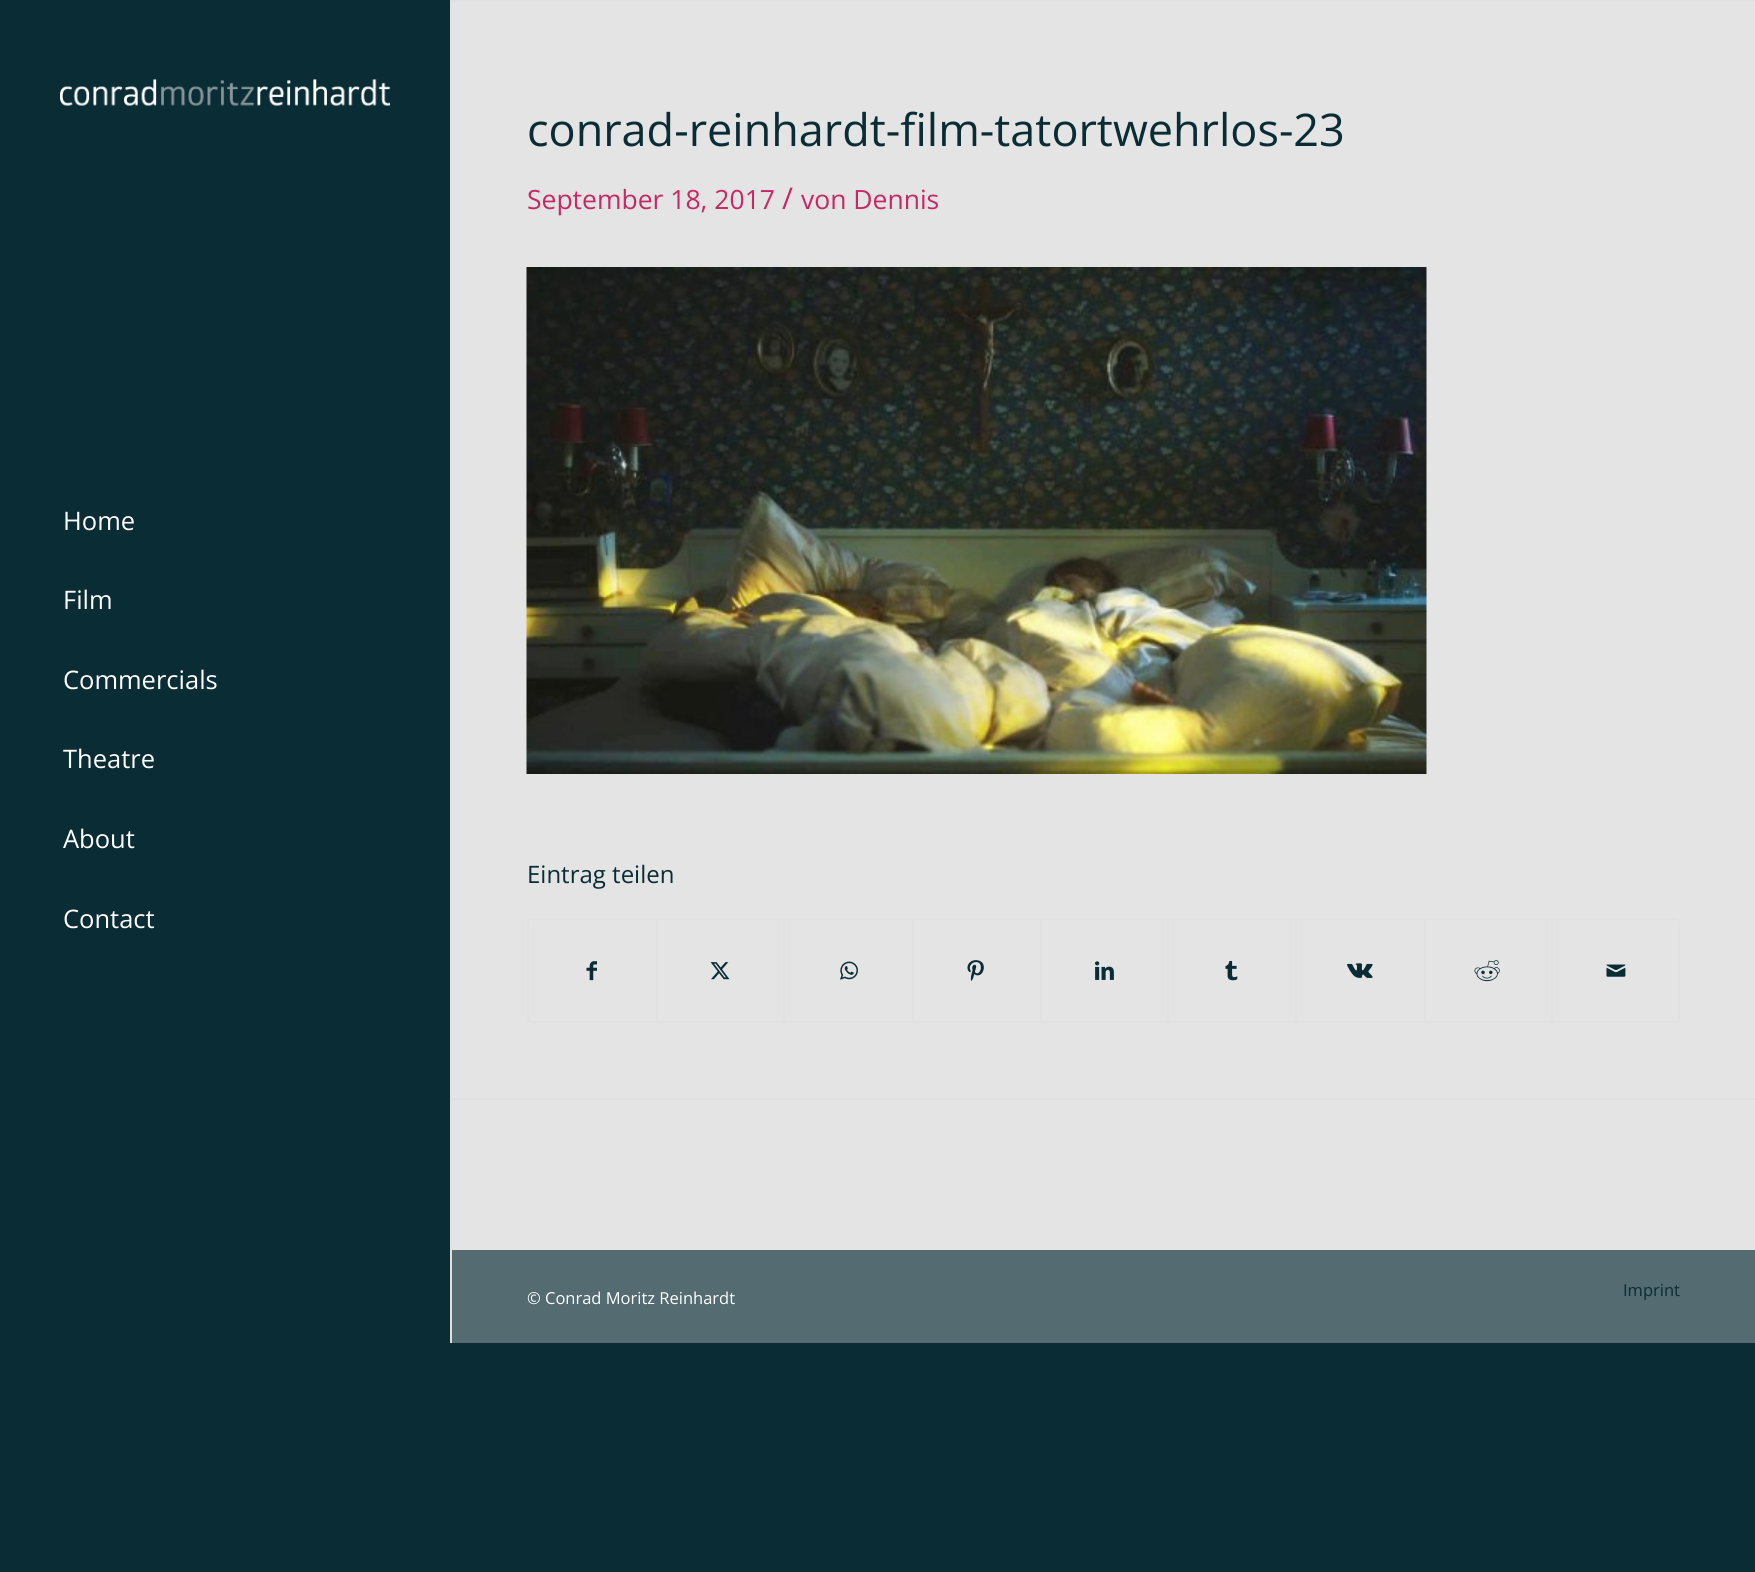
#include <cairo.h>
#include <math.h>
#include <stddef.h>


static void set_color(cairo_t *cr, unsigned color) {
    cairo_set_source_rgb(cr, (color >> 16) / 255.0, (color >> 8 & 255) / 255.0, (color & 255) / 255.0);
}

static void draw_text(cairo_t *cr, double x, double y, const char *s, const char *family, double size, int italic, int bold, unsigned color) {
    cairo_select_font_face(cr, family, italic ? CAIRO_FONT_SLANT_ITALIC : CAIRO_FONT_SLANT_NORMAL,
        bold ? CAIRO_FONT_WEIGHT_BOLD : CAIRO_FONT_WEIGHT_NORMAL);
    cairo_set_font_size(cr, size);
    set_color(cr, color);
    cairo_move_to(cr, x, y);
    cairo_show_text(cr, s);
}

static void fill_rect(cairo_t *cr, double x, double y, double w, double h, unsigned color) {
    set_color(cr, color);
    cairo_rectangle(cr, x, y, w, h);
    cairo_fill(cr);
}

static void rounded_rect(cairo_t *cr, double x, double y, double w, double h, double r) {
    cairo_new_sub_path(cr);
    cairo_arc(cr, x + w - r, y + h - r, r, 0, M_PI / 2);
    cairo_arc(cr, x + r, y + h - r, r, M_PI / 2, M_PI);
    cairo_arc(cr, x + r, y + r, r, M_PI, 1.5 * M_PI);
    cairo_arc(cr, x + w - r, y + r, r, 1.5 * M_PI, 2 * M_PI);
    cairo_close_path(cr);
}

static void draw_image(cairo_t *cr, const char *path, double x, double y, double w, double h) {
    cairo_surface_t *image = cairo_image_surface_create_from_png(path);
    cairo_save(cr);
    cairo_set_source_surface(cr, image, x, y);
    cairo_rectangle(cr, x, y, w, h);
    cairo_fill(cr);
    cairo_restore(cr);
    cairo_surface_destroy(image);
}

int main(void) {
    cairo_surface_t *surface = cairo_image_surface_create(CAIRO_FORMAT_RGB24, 1755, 1572);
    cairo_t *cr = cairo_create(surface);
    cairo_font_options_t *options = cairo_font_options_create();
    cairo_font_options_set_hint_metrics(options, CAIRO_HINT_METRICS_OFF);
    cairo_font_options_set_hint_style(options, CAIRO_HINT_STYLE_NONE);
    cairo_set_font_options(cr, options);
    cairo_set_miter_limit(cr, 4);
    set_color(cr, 0x0A2C35);
    cairo_paint(cr);
    draw_image(cr, "assets/img1.png", 60, 79, 330, 27);
    draw_text(cr, 63, 530, "Home", "Open Sans", 25.5, 0, 0, 0xFFFFFF);
    draw_text(cr, 63, 609, "Film", "Open Sans", 25.5, 0, 0, 0xFFFFFF);
    draw_text(cr, 63, 689, "Commercials", "Open Sans", 25.5, 0, 0, 0xFFFFFF);
    draw_text(cr, 63, 768, "Theatre", "Open Sans", 25.5, 0, 0, 0xFFFFFF);
    draw_text(cr, 63, 848, "About", "Open Sans", 25.5, 0, 0, 0xFFFFFF);
    draw_text(cr, 63, 928, "Contact", "Open Sans", 25.5, 0, 0, 0xFFFFFF);
    fill_rect(cr, 450, 0, 2, 1343, 0xE1E1E1);
    fill_rect(cr, 452, 2, 1303, 1248, 0xE4E4E4);
    fill_rect(cr, 452, 0, 1303, 2, 0xE1E1E1);
    draw_text(cr, 527, 146, "conrad-reinhardt-film-tatortwehrlos-23", "Open Sans", 45, 0, 0, 0x0A2C35);
    draw_text(cr, 527, 209, "September 18, 2017", "Open Sans", 26.5, 0, 0, 0xC82865);
    draw_text(cr, 782, 209, "/", "Open Sans", 30, 0, 0, 0xC82865);
    draw_text(cr, 801, 209, "von Dennis", "Open Sans", 26.5, 0, 0, 0xC82865);
    draw_image(cr, "assets/img2.png", 526, 267, 901, 507);
    draw_text(cr, 527, 883, "Eintrag teilen", "Open Sans", 24, 0, 0, 0x0A2C35);
    rounded_rect(cr, 528, 919, 1151, 103, 4);
    set_color(cr, 0xE1E1E1);
    cairo_stroke(cr);
    draw_image(cr, "assets/img3.png", 586, 961, 11, 20);
    fill_rect(cr, 656, 920, 2, 102, 0xE1E1E1);
    draw_image(cr, "assets/img4.png", 710, 962, 20, 18);
    fill_rect(cr, 783, 920, 2, 102, 0xE1E1E1);
    draw_image(cr, "assets/img5.png", 840, 961, 18, 19);
    fill_rect(cr, 912, 920, 2, 102, 0xE1E1E1);
    draw_image(cr, "assets/img6.png", 967, 960, 17, 21);
    fill_rect(cr, 1040, 920, 2, 102, 0xE1E1E1);
    draw_image(cr, "assets/img7.png", 1095, 961, 19, 19);
    fill_rect(cr, 1167, 920, 2, 102, 0xE1E1E1);
    draw_image(cr, "assets/img8.png", 1225, 961, 13, 20);
    fill_rect(cr, 1295, 920, 2, 102, 0xE1E1E1);
    draw_image(cr, "assets/img9.png", 1347, 963, 26, 15);
    fill_rect(cr, 1424, 920, 2, 102, 0xE1E1E1);
    draw_image(cr, "assets/img10.png", 1474, 960, 26, 22);
    fill_rect(cr, 1551, 920, 2, 102, 0xE1E1E1);
    draw_image(cr, "assets/img11.png", 1606, 964, 20, 13);
    fill_rect(cr, 450, 1098, 1305, 2, 0xE1E1E1);
    fill_rect(cr, 452, 1250, 1303, 93, 0x536B71);
    draw_text(cr, 527, 1304, "© Conrad Moritz Reinhardt", "Open Sans", 16.5, 0, 0, 0xFFFFFF);
    draw_text(cr, 1623, 1296, "Imprint", "Open Sans", 16.5, 0, 0, 0x0A2C35);
    cairo_surface_write_to_png(surface, "output.png");
    cairo_font_options_destroy(options);
    cairo_destroy(cr);
    cairo_surface_destroy(surface);
    return 0;
}
